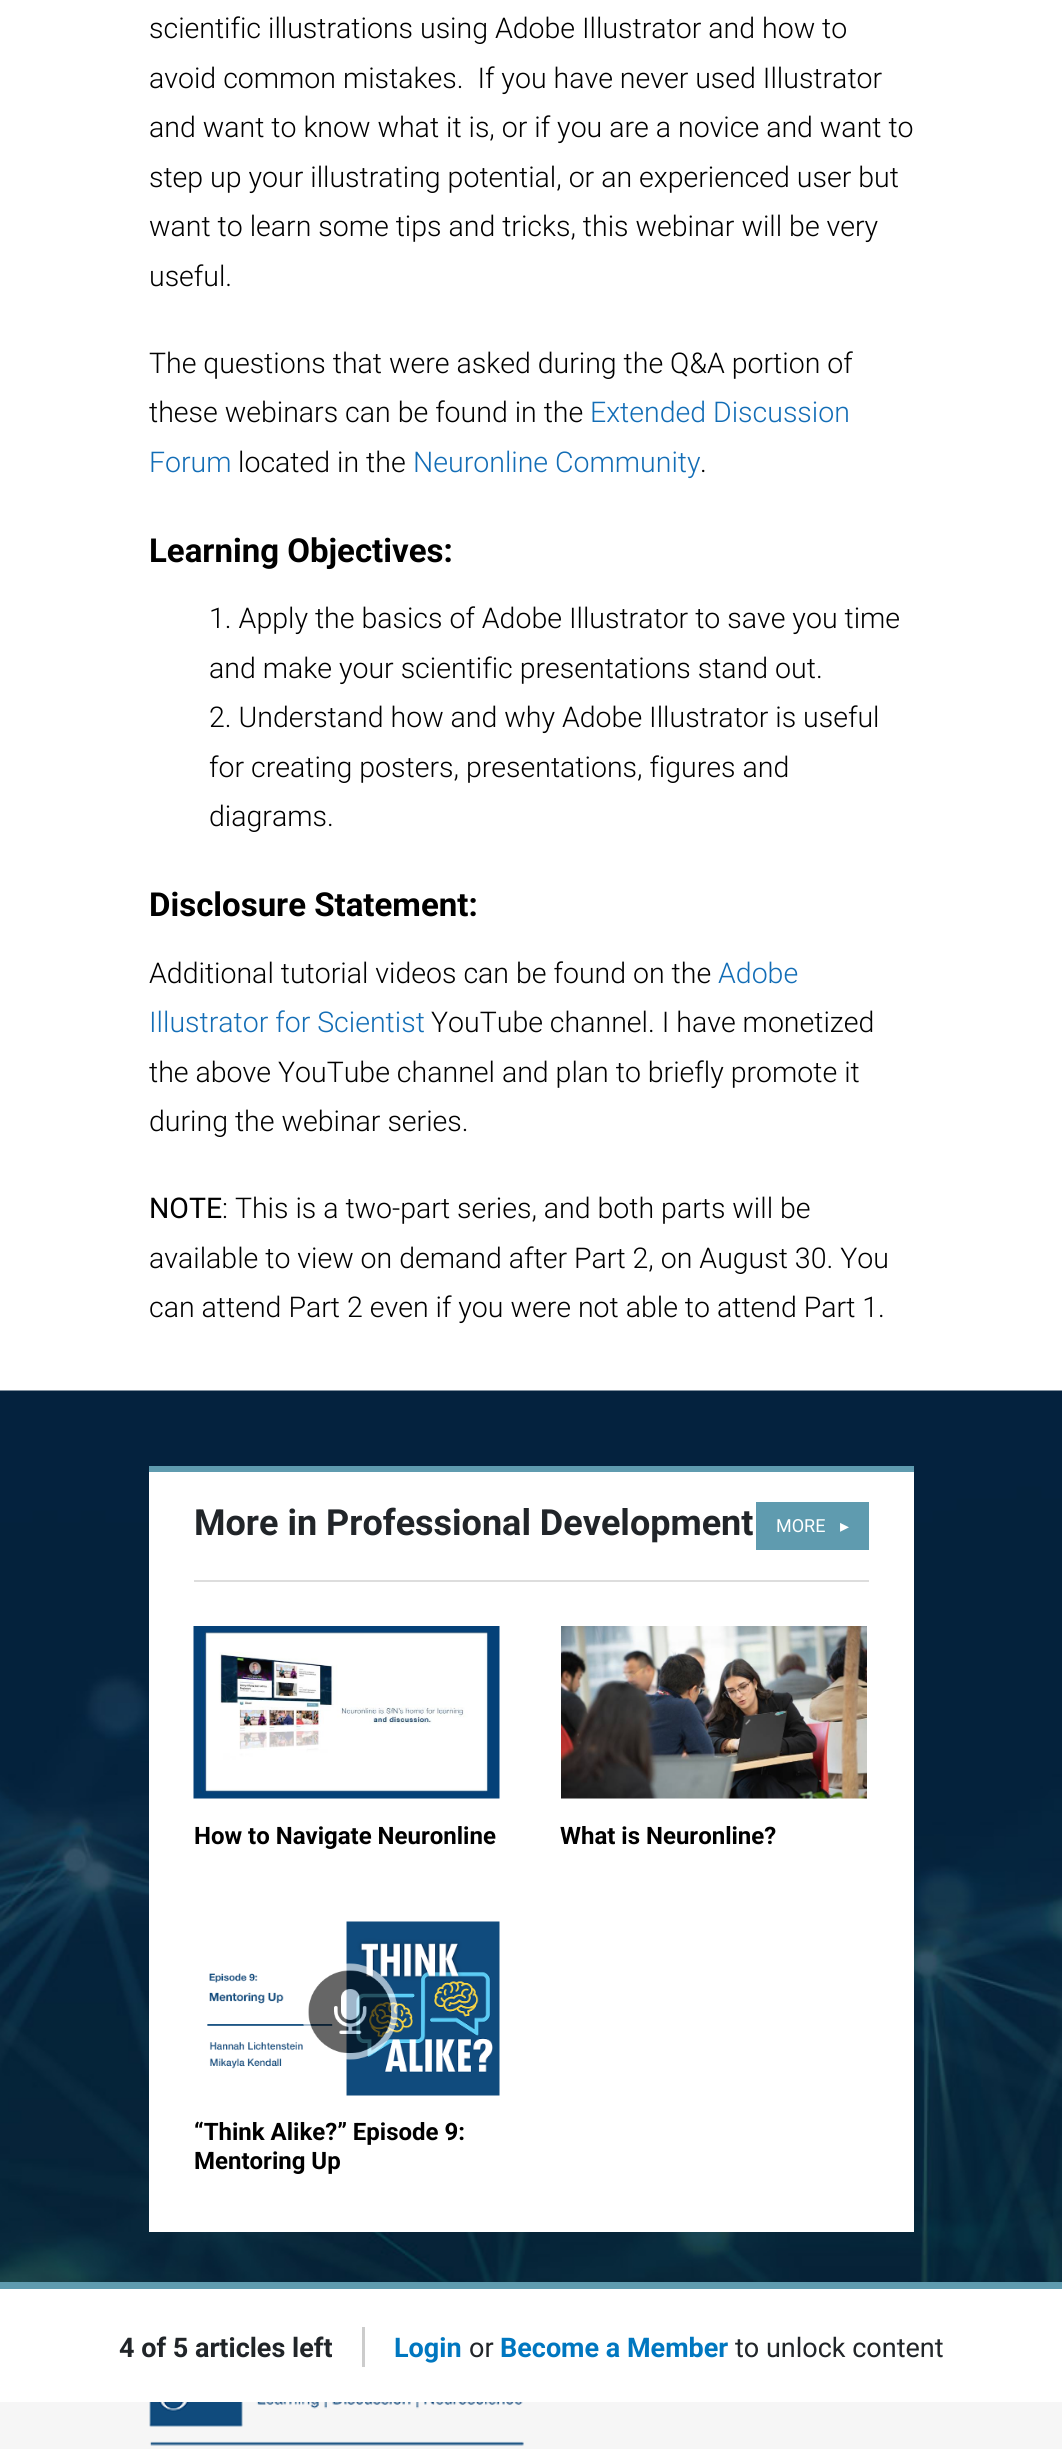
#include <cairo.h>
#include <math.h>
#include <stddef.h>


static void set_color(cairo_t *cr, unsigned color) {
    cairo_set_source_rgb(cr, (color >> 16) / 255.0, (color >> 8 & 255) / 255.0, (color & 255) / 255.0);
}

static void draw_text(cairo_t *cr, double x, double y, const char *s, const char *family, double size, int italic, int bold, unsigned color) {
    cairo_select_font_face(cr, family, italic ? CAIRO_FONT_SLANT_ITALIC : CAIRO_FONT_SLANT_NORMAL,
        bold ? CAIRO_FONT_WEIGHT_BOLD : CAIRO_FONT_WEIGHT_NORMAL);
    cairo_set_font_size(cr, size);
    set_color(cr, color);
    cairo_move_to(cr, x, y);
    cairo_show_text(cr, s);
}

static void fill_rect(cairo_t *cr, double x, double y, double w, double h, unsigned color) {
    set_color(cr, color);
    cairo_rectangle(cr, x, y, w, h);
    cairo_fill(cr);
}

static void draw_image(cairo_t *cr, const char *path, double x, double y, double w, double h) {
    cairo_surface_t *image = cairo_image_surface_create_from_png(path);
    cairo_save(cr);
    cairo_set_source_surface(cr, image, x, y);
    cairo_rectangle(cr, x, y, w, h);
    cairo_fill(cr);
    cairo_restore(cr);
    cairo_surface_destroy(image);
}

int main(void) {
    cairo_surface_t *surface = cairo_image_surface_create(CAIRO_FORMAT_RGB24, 1062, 2449);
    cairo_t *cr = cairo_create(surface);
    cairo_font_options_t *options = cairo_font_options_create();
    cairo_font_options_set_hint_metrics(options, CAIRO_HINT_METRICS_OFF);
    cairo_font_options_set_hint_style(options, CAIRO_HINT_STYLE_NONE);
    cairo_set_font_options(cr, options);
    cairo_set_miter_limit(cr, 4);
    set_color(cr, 0xFFFFFF);
    cairo_paint(cr);
    draw_text(cr, 149, 38, "scientific illustrations using Adobe Illustrator and how to", "Roboto Light", 28.5, 0, 0, 0x000000);
    draw_text(cr, 149, 88, "avoid common mistakes.  If you have never used Illustrator", "Roboto Light", 28.5, 0, 0, 0x000000);
    draw_text(cr, 149, 137, "and want to know what it is, or if you are a novice and want to", "Roboto Light", 28.5, 0, 0, 0x000000);
    draw_text(cr, 149, 187, "step up your illustrating potential, or an experienced user but", "Roboto Light", 28.5, 0, 0, 0x000000);
    draw_text(cr, 149, 236, "want to learn some tips and tricks, this webinar will be very", "Roboto Light", 28.5, 0, 0, 0x000000);
    draw_text(cr, 149, 286, "useful.", "Roboto Light", 28.5, 0, 0, 0x000000);
    draw_text(cr, 149, 373, "The questions that were asked during the Q&A portion of", "Roboto Light", 28.5, 0, 0, 0x000000);
    draw_text(cr, 149, 422, "these webinars can be found in the", "Roboto Light", 28.5, 0, 0, 0x000000);
    draw_text(cr, 590, 422, "Extended Discussion", "Roboto Light", 28.5, 0, 0, 0x126DB6);
    draw_text(cr, 149, 472, "Forum", "Roboto Light", 28.5, 0, 0, 0x126DB6);
    draw_text(cr, 238, 472, "located in the", "Roboto Light", 28.5, 0, 0, 0x000000);
    draw_text(cr, 413, 472, "Neuronline Community", "Roboto Light", 28.5, 0, 0, 0x126DB6);
    draw_text(cr, 700, 472, ".", "Roboto Light", 28.5, 0, 0, 0x000000);
    draw_text(cr, 149, 562, "Learning Objectives:", "Roboto", 33, 0, 1, 0x000000);
    draw_text(cr, 209, 628, "1. Apply the basics of Adobe Illustrator to save you time", "Roboto Light", 28.5, 0, 0, 0x000000);
    draw_text(cr, 209, 678, "and make your scientific presentations stand out.", "Roboto Light", 28.5, 0, 0, 0x000000);
    draw_text(cr, 209, 727, "2. Understand how and why Adobe Illustrator is useful", "Roboto Light", 28.5, 0, 0, 0x000000);
    draw_text(cr, 209, 777, "for creating posters, presentations, figures and", "Roboto Light", 28.5, 0, 0, 0x000000);
    draw_text(cr, 209, 826, "diagrams.", "Roboto Light", 28.5, 0, 0, 0x000000);
    draw_text(cr, 149, 916, "Disclosure Statement:", "Roboto", 33, 0, 1, 0x000000);
    draw_text(cr, 149, 983, "Additional tutorial videos can be found on the", "Roboto Light", 28.5, 0, 0, 0x000000);
    draw_text(cr, 718, 983, "Adobe", "Roboto Light", 28.5, 0, 0, 0x126DB6);
    draw_text(cr, 149, 1032, "Illustrator for Scientist", "Roboto Light", 28.5, 0, 0, 0x126DB6);
    draw_text(cr, 431, 1032, "YouTube channel. I have monetized", "Roboto Light", 28.5, 0, 0, 0x000000);
    draw_text(cr, 149, 1082, "the above YouTube channel and plan to briefly promote it", "Roboto Light", 28.5, 0, 0, 0x000000);
    draw_text(cr, 149, 1131, "during the webinar series.", "Roboto Light", 28.5, 0, 0, 0x000000);
    draw_text(cr, 149, 1218, "NOTE", "Roboto", 28.5, 0, 0, 0x000000);
    draw_text(cr, 222, 1218, ": This is a two-part series, and both parts will be", "Roboto Light", 28.5, 0, 0, 0x000000);
    draw_text(cr, 149, 1268, "available to view on demand after Part 2, on August 30. You", "Roboto Light", 28.5, 0, 0, 0x000000);
    draw_text(cr, 149, 1317, "can attend Part 2 even if you were not able to attend Part 1.", "Roboto Light", 28.5, 0, 0, 0x000000);
    draw_image(cr, "assets/img1.png", 0, 1390, 1062, 892);
    fill_rect(cr, 149, 1472, 765, 760, 0xFFFFFF);
    fill_rect(cr, 149, 1466, 765, 6, 0x5F9BAF);
    fill_rect(cr, 194, 1580, 675, 2, 0xDDDDDD);
    draw_text(cr, 194, 1535, "More in Professional Development", "Roboto", 36, 0, 1, 0x212529);
    fill_rect(cr, 756, 1502, 113, 48, 0x5F9BAF);
    draw_text(cr, 776, 1532, "MORE", "Roboto", 18, 0, 0, 0xFFFFFF);
    draw_text(cr, 840, 1532, "▸", "DejaVu Sans", 18, 0, 0, 0xFFFFFF);
    draw_image(cr, "assets/img2.png", 193, 1626, 307, 173);
    draw_text(cr, 194, 1844, "How to Navigate Neuronline", "Roboto", 24, 0, 1, 0x000000);
    draw_image(cr, "assets/img3.png", 561, 1626, 306, 173);
    draw_text(cr, 560, 1844, "What is Neuronline?", "Roboto", 24, 0, 1, 0x000000);
    draw_image(cr, "assets/img4.png", 207, 1921, 293, 175);
    draw_image(cr, "assets/img5.png", 303, 1963, 95, 97);
    draw_text(cr, 194, 2140, "“Think Alike?” Episode 9:", "Roboto", 24, 0, 1, 0x000000);
    draw_text(cr, 194, 2169, "Mentoring Up", "Roboto", 24, 0, 1, 0x000000);
    fill_rect(cr, 0, 2282, 1062, 7, 0x5F9BAF);
    fill_rect(cr, 362, 2327, 3, 40, 0xCCCCCC);
    draw_text(cr, 119, 2357, "4 of 5 articles left", "Roboto", 27, 0, 1, 0x212529);
    draw_text(cr, 394, 2357, "Login", "Roboto", 27, 0, 1, 0x0077C0);
    draw_text(cr, 469, 2357, "or", "Roboto", 27, 0, 0, 0x212529);
    draw_text(cr, 500, 2357, "Become a Member", "Roboto", 27, 0, 1, 0x0077C0);
    draw_text(cr, 735, 2357, "to unlock content", "Roboto", 27, 0, 0, 0x212529);
    fill_rect(cr, 0, 2402, 1062, 47, 0xF6F6F6);
    draw_image(cr, "assets/img6.png", 149, 2402, 375, 44);
    cairo_surface_write_to_png(surface, "output.png");
    cairo_font_options_destroy(options);
    cairo_destroy(cr);
    cairo_surface_destroy(surface);
    return 0;
}
